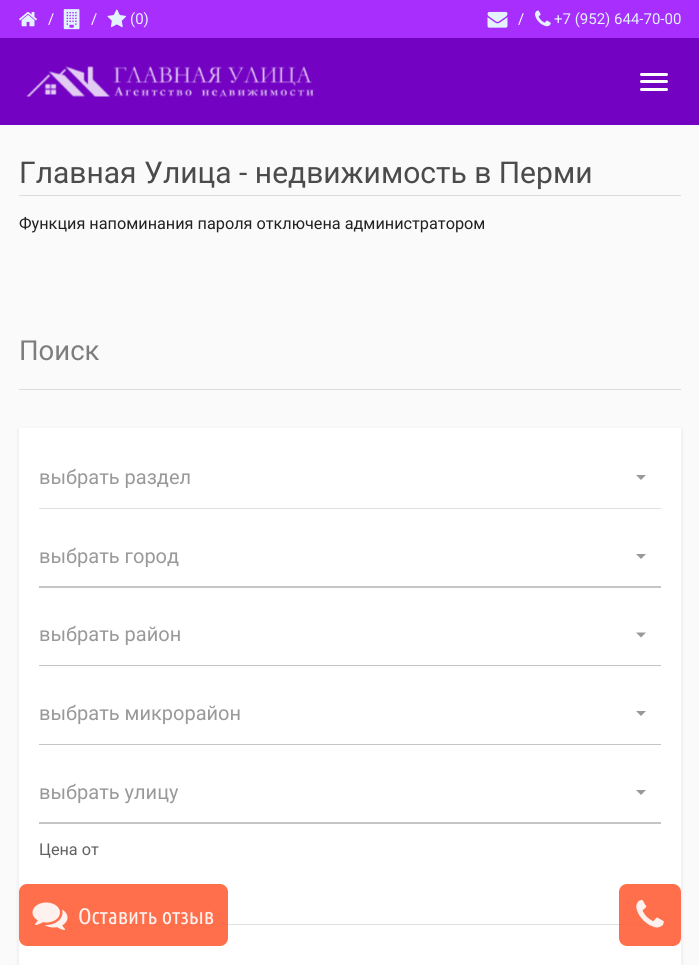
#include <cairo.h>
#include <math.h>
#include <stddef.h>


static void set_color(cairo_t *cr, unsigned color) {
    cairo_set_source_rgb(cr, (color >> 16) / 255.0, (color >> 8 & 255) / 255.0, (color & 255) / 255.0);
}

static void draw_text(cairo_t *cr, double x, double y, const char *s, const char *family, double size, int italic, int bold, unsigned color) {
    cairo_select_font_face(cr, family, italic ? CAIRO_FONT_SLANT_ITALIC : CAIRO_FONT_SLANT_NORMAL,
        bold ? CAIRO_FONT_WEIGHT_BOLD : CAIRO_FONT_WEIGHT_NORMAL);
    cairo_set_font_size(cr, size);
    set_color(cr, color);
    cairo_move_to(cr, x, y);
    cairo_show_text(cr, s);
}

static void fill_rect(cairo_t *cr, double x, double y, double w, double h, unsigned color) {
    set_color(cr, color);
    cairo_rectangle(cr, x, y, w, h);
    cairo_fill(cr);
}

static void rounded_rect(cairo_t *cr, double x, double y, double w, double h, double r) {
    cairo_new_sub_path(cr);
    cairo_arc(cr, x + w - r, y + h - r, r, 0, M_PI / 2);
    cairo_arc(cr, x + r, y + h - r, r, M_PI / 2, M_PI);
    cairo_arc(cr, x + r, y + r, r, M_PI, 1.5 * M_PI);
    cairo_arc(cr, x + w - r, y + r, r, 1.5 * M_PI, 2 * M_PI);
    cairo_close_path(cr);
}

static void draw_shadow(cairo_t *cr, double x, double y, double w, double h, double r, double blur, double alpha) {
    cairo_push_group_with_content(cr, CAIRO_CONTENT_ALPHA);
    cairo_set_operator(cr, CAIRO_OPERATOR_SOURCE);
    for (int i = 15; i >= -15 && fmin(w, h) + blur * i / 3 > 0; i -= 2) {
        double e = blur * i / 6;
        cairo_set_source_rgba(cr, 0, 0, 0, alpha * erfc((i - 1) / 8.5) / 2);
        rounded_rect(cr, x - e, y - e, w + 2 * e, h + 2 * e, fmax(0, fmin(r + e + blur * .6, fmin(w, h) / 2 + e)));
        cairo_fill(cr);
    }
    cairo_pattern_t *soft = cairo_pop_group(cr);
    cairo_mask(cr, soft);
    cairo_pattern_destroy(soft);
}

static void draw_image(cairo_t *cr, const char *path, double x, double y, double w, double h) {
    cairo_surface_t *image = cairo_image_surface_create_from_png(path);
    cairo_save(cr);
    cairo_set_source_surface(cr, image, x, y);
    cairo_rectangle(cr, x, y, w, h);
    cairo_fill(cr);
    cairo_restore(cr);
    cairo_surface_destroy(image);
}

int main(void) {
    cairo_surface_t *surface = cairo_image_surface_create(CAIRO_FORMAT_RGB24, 699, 965);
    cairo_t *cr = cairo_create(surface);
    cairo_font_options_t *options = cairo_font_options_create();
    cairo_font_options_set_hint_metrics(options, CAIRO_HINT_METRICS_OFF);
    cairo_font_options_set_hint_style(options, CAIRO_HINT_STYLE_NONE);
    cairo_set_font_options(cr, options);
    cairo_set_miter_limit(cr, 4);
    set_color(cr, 0xFAFAFA);
    cairo_paint(cr);
    fill_rect(cr, 0, 38, 699, 87, 0x7302C3);
    fill_rect(cr, 0, 0, 699, 38, 0xA72EFC);
    draw_image(cr, "assets/img1.png", 19, 11, 18, 16);
    draw_text(cr, 48, 24, "/", "Roboto", 15, 0, 0, 0xFFFFFF);
    draw_image(cr, "assets/img2.png", 63, 9, 17, 21);
    draw_text(cr, 91, 24, "/", "Roboto", 15, 0, 0, 0xFFFFFF);
    draw_image(cr, "assets/img3.png", 107, 9, 19, 19);
    draw_text(cr, 130, 24, "(0)", "Roboto", 15, 0, 0, 0xE3F2FD);
    draw_image(cr, "assets/img4.png", 487, 11, 21, 17);
    draw_text(cr, 518, 24, "/", "Roboto", 15, 0, 0, 0xFFFFFF);
    draw_image(cr, "assets/img5.png", 535, 10, 16, 17);
    draw_text(cr, 554, 24, "+7 (952) 644-70-00", "Roboto", 15, 0, 0, 0xE3F2FD);
    draw_image(cr, "assets/img6.png", 26, 66, 288, 32);
    set_color(cr, 0xFFFFFF);
    rounded_rect(cr, 640, 73, 28, 3, 1.5);
    cairo_fill(cr);
    rounded_rect(cr, 640, 80, 28, 3, 1.5);
    cairo_fill(cr);
    rounded_rect(cr, 640, 88, 28, 3, 1.5);
    cairo_fill(cr);
    fill_rect(cr, 19, 195, 662, 1, 0xDCDCDC);
    draw_text(cr, 19, 183, "Главная Улица - недвижимость в Перми", "Roboto", 30, 0, 0, 0x4B4B4B);
    draw_text(cr, 19, 229, "Функция напоминания пароля отключена администратором", "Roboto", 16.25, 0, 0, 0x212121);
    fill_rect(cr, 19, 389, 662, 1, 0xDCDCDC);
    draw_text(cr, 19, 360, "Поиск", "Roboto", 27.5, 0, 0, 0x7D7D7D);
    set_color(cr, 0x000000);
    draw_shadow(cr, 19, 430, 662, 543, 0, 2.5, 0.08);
    fill_rect(cr, 19, 428, 662, 537, 0xFFFFFF);
    fill_rect(cr, 39, 508, 622, 1, 0xE0E0E0);
    draw_text(cr, 39, 484, "выбрать раздел", "Roboto", 20, 0, 0, 0x999999);
    cairo_new_path(cr);
    cairo_move_to(cr, 636, 475);
    cairo_line_to(cr, 646, 475);
    cairo_line_to(cr, 641, 480);
    cairo_close_path(cr);
    cairo_fill(cr);
    fill_rect(cr, 39, 586, 622, 2, 0xC5C5C5);
    draw_text(cr, 39, 563, "выбрать город", "Roboto", 20, 0, 0, 0x999999);
    cairo_new_path(cr);
    cairo_move_to(cr, 636, 554);
    cairo_line_to(cr, 646, 554);
    cairo_line_to(cr, 641, 559);
    cairo_close_path(cr);
    cairo_fill(cr);
    fill_rect(cr, 39, 665, 622, 1, 0xC5C5C5);
    draw_text(cr, 39, 641, "выбрать район", "Roboto", 20, 0, 0, 0x999999);
    cairo_new_path(cr);
    cairo_move_to(cr, 636, 632.5);
    cairo_line_to(cr, 646, 632.5);
    cairo_line_to(cr, 641, 637.5);
    cairo_close_path(cr);
    cairo_fill(cr);
    fill_rect(cr, 39, 744, 622, 1, 0xC5C5C5);
    draw_text(cr, 39, 720, "выбрать микрорайон", "Roboto", 20, 0, 0, 0x999999);
    cairo_new_path(cr);
    cairo_move_to(cr, 636, 711);
    cairo_line_to(cr, 646, 711);
    cairo_line_to(cr, 641, 716);
    cairo_close_path(cr);
    cairo_fill(cr);
    fill_rect(cr, 39, 822, 622, 2, 0xC5C5C5);
    draw_text(cr, 39, 799, "выбрать улицу", "Roboto", 20, 0, 0, 0x999999);
    cairo_new_path(cr);
    cairo_move_to(cr, 636, 790);
    cairo_line_to(cr, 646, 790);
    cairo_line_to(cr, 641, 795);
    cairo_close_path(cr);
    cairo_fill(cr);
    draw_text(cr, 39, 855, "Цена от", "Roboto", 16.25, 0, 0, 0x616161);
    fill_rect(cr, 39, 924, 622, 1, 0xE0E0E0);
    cairo_set_source_rgba(cr, 1, 0.376, 0.224, 0.9);
    rounded_rect(cr, 19, 884, 209, 62, 8);
    cairo_fill(cr);
    draw_image(cr, "assets/img7.png", 32, 902, 36, 28);
    draw_text(cr, 78, 924, "Оставить отзыв", "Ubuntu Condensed", 22.5, 0, 0, 0xFFF1ED);
    cairo_set_source_rgba(cr, 1, 0.376, 0.224, 0.9);
    rounded_rect(cr, 619, 884, 62, 62, 8);
    cairo_fill(cr);
    draw_image(cr, "assets/img8.png", 636, 900, 28, 28);
    cairo_surface_write_to_png(surface, "output.png");
    cairo_font_options_destroy(options);
    cairo_destroy(cr);
    cairo_surface_destroy(surface);
    return 0;
}
